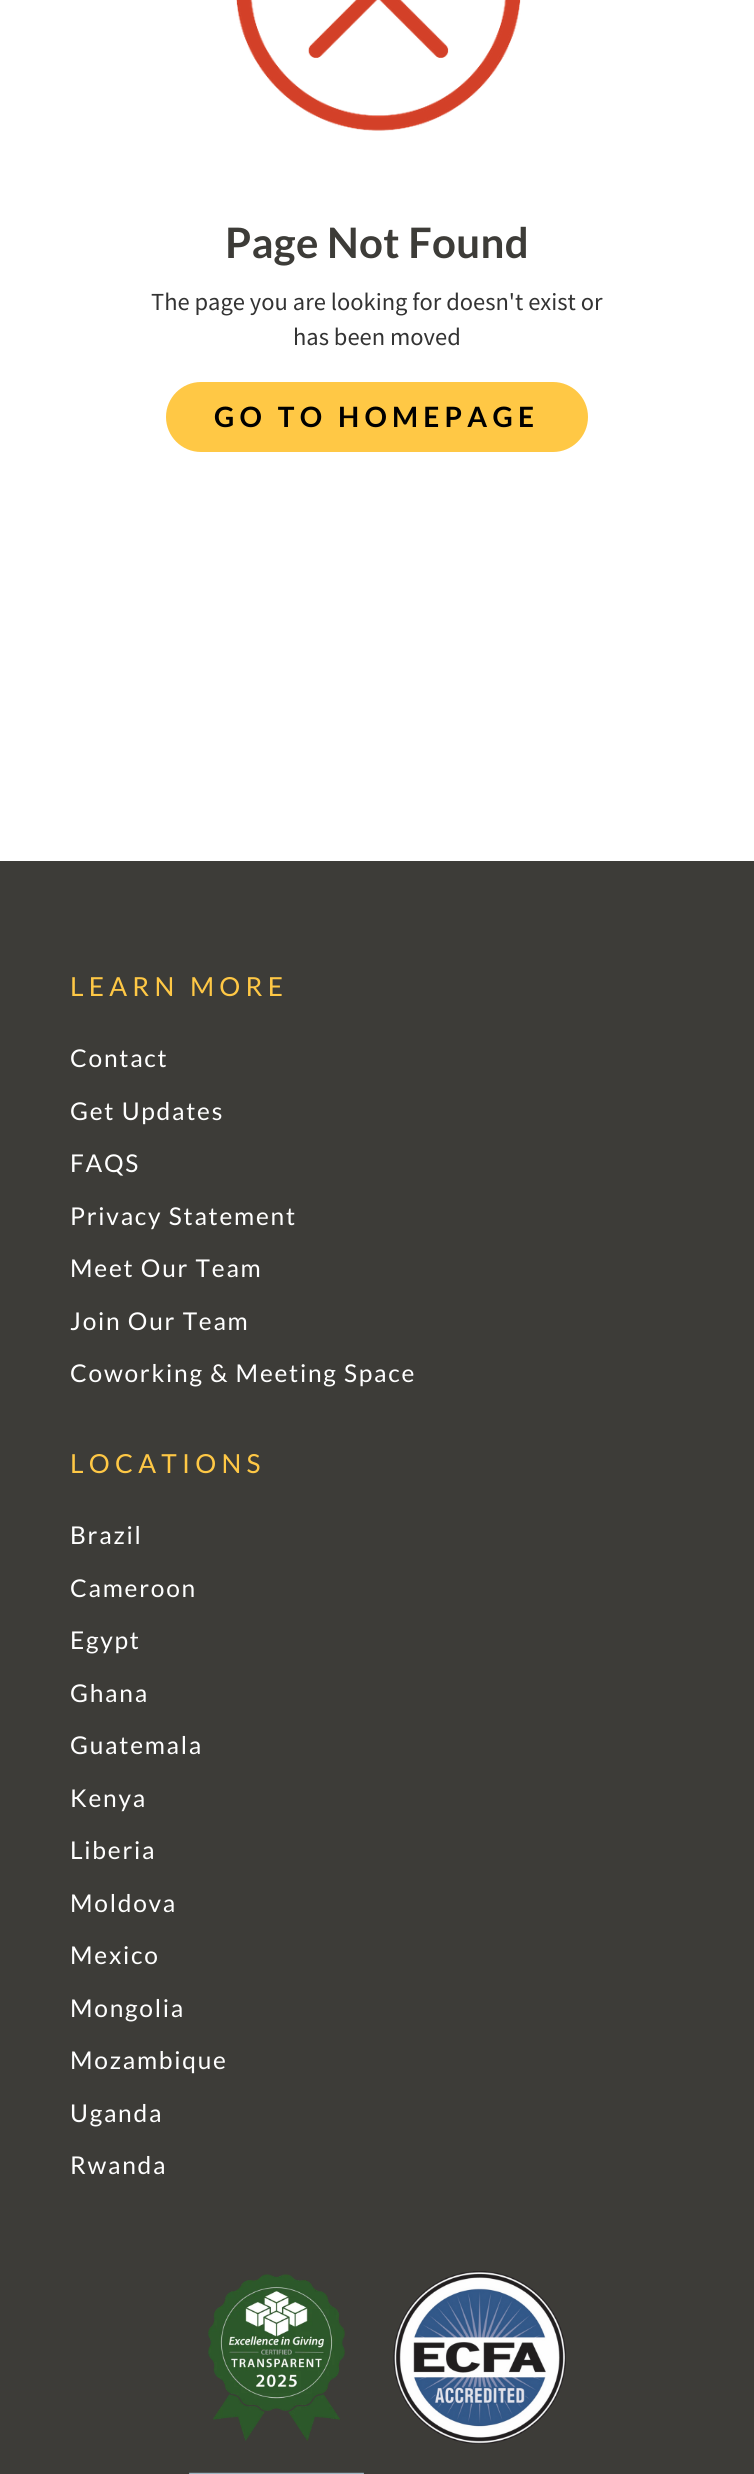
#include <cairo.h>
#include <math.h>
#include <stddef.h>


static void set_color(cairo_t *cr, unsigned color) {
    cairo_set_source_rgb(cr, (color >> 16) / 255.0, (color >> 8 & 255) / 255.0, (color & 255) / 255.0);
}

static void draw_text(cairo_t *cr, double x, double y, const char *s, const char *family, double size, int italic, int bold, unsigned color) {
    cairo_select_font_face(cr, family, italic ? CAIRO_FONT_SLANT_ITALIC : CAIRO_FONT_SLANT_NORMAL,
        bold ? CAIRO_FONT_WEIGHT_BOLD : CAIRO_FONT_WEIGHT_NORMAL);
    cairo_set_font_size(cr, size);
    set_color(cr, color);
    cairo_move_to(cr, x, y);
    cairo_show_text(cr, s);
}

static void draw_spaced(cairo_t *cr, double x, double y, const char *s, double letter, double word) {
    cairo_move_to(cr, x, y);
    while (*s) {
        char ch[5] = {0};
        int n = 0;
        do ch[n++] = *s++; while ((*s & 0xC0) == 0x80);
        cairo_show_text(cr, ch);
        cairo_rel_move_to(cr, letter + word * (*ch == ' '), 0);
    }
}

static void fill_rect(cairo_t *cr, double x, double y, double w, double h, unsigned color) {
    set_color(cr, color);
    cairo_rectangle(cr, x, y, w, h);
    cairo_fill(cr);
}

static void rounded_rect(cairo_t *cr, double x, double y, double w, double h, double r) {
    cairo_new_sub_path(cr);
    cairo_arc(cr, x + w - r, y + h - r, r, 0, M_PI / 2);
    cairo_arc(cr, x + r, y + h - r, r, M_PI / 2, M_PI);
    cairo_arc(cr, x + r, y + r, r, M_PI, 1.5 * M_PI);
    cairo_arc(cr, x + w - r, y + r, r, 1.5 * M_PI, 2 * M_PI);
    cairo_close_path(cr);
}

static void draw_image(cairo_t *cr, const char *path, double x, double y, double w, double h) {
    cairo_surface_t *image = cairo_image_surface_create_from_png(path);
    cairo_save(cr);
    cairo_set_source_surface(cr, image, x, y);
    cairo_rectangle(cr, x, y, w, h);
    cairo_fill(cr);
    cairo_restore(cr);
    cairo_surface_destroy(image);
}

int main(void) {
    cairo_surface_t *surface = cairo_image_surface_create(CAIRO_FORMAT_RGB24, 754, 2474);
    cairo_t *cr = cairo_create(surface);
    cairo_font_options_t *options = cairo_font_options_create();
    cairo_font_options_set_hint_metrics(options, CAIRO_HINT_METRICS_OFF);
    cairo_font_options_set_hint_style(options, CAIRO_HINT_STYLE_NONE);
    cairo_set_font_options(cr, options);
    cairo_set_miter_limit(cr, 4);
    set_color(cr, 0xFFFFFF);
    cairo_paint(cr);
    draw_image(cr, "assets/img1.png", 236, 0, 285, 131);
    cairo_select_font_face(cr, "Lato", CAIRO_FONT_SLANT_NORMAL, CAIRO_FONT_WEIGHT_BOLD);
    cairo_set_font_size(cr, 42);
    set_color(cr, 0x3D3C38);
    draw_spaced(cr, 225, 258, "Page Not Found", 0.3, 0);
    draw_text(cr, 151, 310, "The page you are looking for doesn't exist or", "Source Sans Pro", 24.5, 0, 0, 0x333333);
    draw_text(cr, 293, 345, "has been moved", "Source Sans Pro", 24.5, 0, 0, 0x333333);
    set_color(cr, 0xFFC845);
    rounded_rect(cr, 166, 382, 422, 70, 35);
    cairo_fill(cr);
    cairo_select_font_face(cr, "Lato", CAIRO_FONT_SLANT_NORMAL, CAIRO_FONT_WEIGHT_BOLD);
    cairo_set_font_size(cr, 28);
    set_color(cr, 0x000000);
    draw_spaced(cr, 214, 427, "GO TO HOMEPAGE", 5.25, 0);
    fill_rect(cr, 0, 861, 754, 1613, 0x3D3C38);
    cairo_select_font_face(cr, "Lato", CAIRO_FONT_SLANT_NORMAL, CAIRO_FONT_WEIGHT_NORMAL);
    cairo_set_font_size(cr, 26.25);
    set_color(cr, 0xFFC845);
    draw_spaced(cr, 70, 996, "LEARN MORE", 5.25, 0);
    cairo_set_font_size(cr, 24.5);
    set_color(cr, 0xFFFFFF);
    draw_spaced(cr, 70, 1067, "Contact", 1.75, 0);
    draw_spaced(cr, 70, 1120, "Get Updates", 1.75, 0);
    draw_spaced(cr, 70, 1172, "FAQS", 1.75, 0);
    draw_spaced(cr, 70, 1225, "Privacy Statement", 1.75, 0);
    draw_spaced(cr, 70, 1277, "Meet Our Team", 1.75, 0);
    draw_spaced(cr, 70, 1330, "Join Our Team", 1.75, 0);
    draw_spaced(cr, 70, 1382, "Coworking & Meeting Space", 1.75, 0);
    cairo_set_font_size(cr, 26.25);
    set_color(cr, 0xFFC845);
    draw_spaced(cr, 70, 1473, "LOCATIONS", 5.25, 0);
    cairo_set_font_size(cr, 24.5);
    set_color(cr, 0xFFFFFF);
    draw_spaced(cr, 70, 1544, "Brazil", 1.75, 0);
    draw_spaced(cr, 70, 1597, "Cameroon", 1.75, 0);
    draw_spaced(cr, 70, 1649, "Egypt", 1.75, 0);
    draw_spaced(cr, 70, 1702, "Ghana", 1.75, 0);
    draw_spaced(cr, 70, 1754, "Guatemala", 1.75, 0);
    draw_spaced(cr, 70, 1807, "Kenya", 1.75, 0);
    draw_spaced(cr, 70, 1859, "Liberia", 1.75, 0);
    draw_spaced(cr, 70, 1912, "Moldova", 1.75, 0);
    draw_spaced(cr, 70, 1964, "Mexico", 1.75, 0);
    draw_spaced(cr, 70, 2017, "Mongolia", 1.75, 0);
    draw_spaced(cr, 70, 2069, "Mozambique", 1.75, 0);
    draw_spaced(cr, 70, 2122, "Uganda", 1.75, 0);
    draw_spaced(cr, 70, 2174, "Rwanda", 1.75, 0);
    draw_image(cr, "assets/img2.png", 208, 2274, 137, 167);
    draw_image(cr, "assets/img3.png", 393, 2271, 173, 173);
    draw_image(cr, "assets/img4.png", 189, 2472, 175, 2);
    cairo_surface_write_to_png(surface, "output.png");
    cairo_font_options_destroy(options);
    cairo_destroy(cr);
    cairo_surface_destroy(surface);
    return 0;
}
